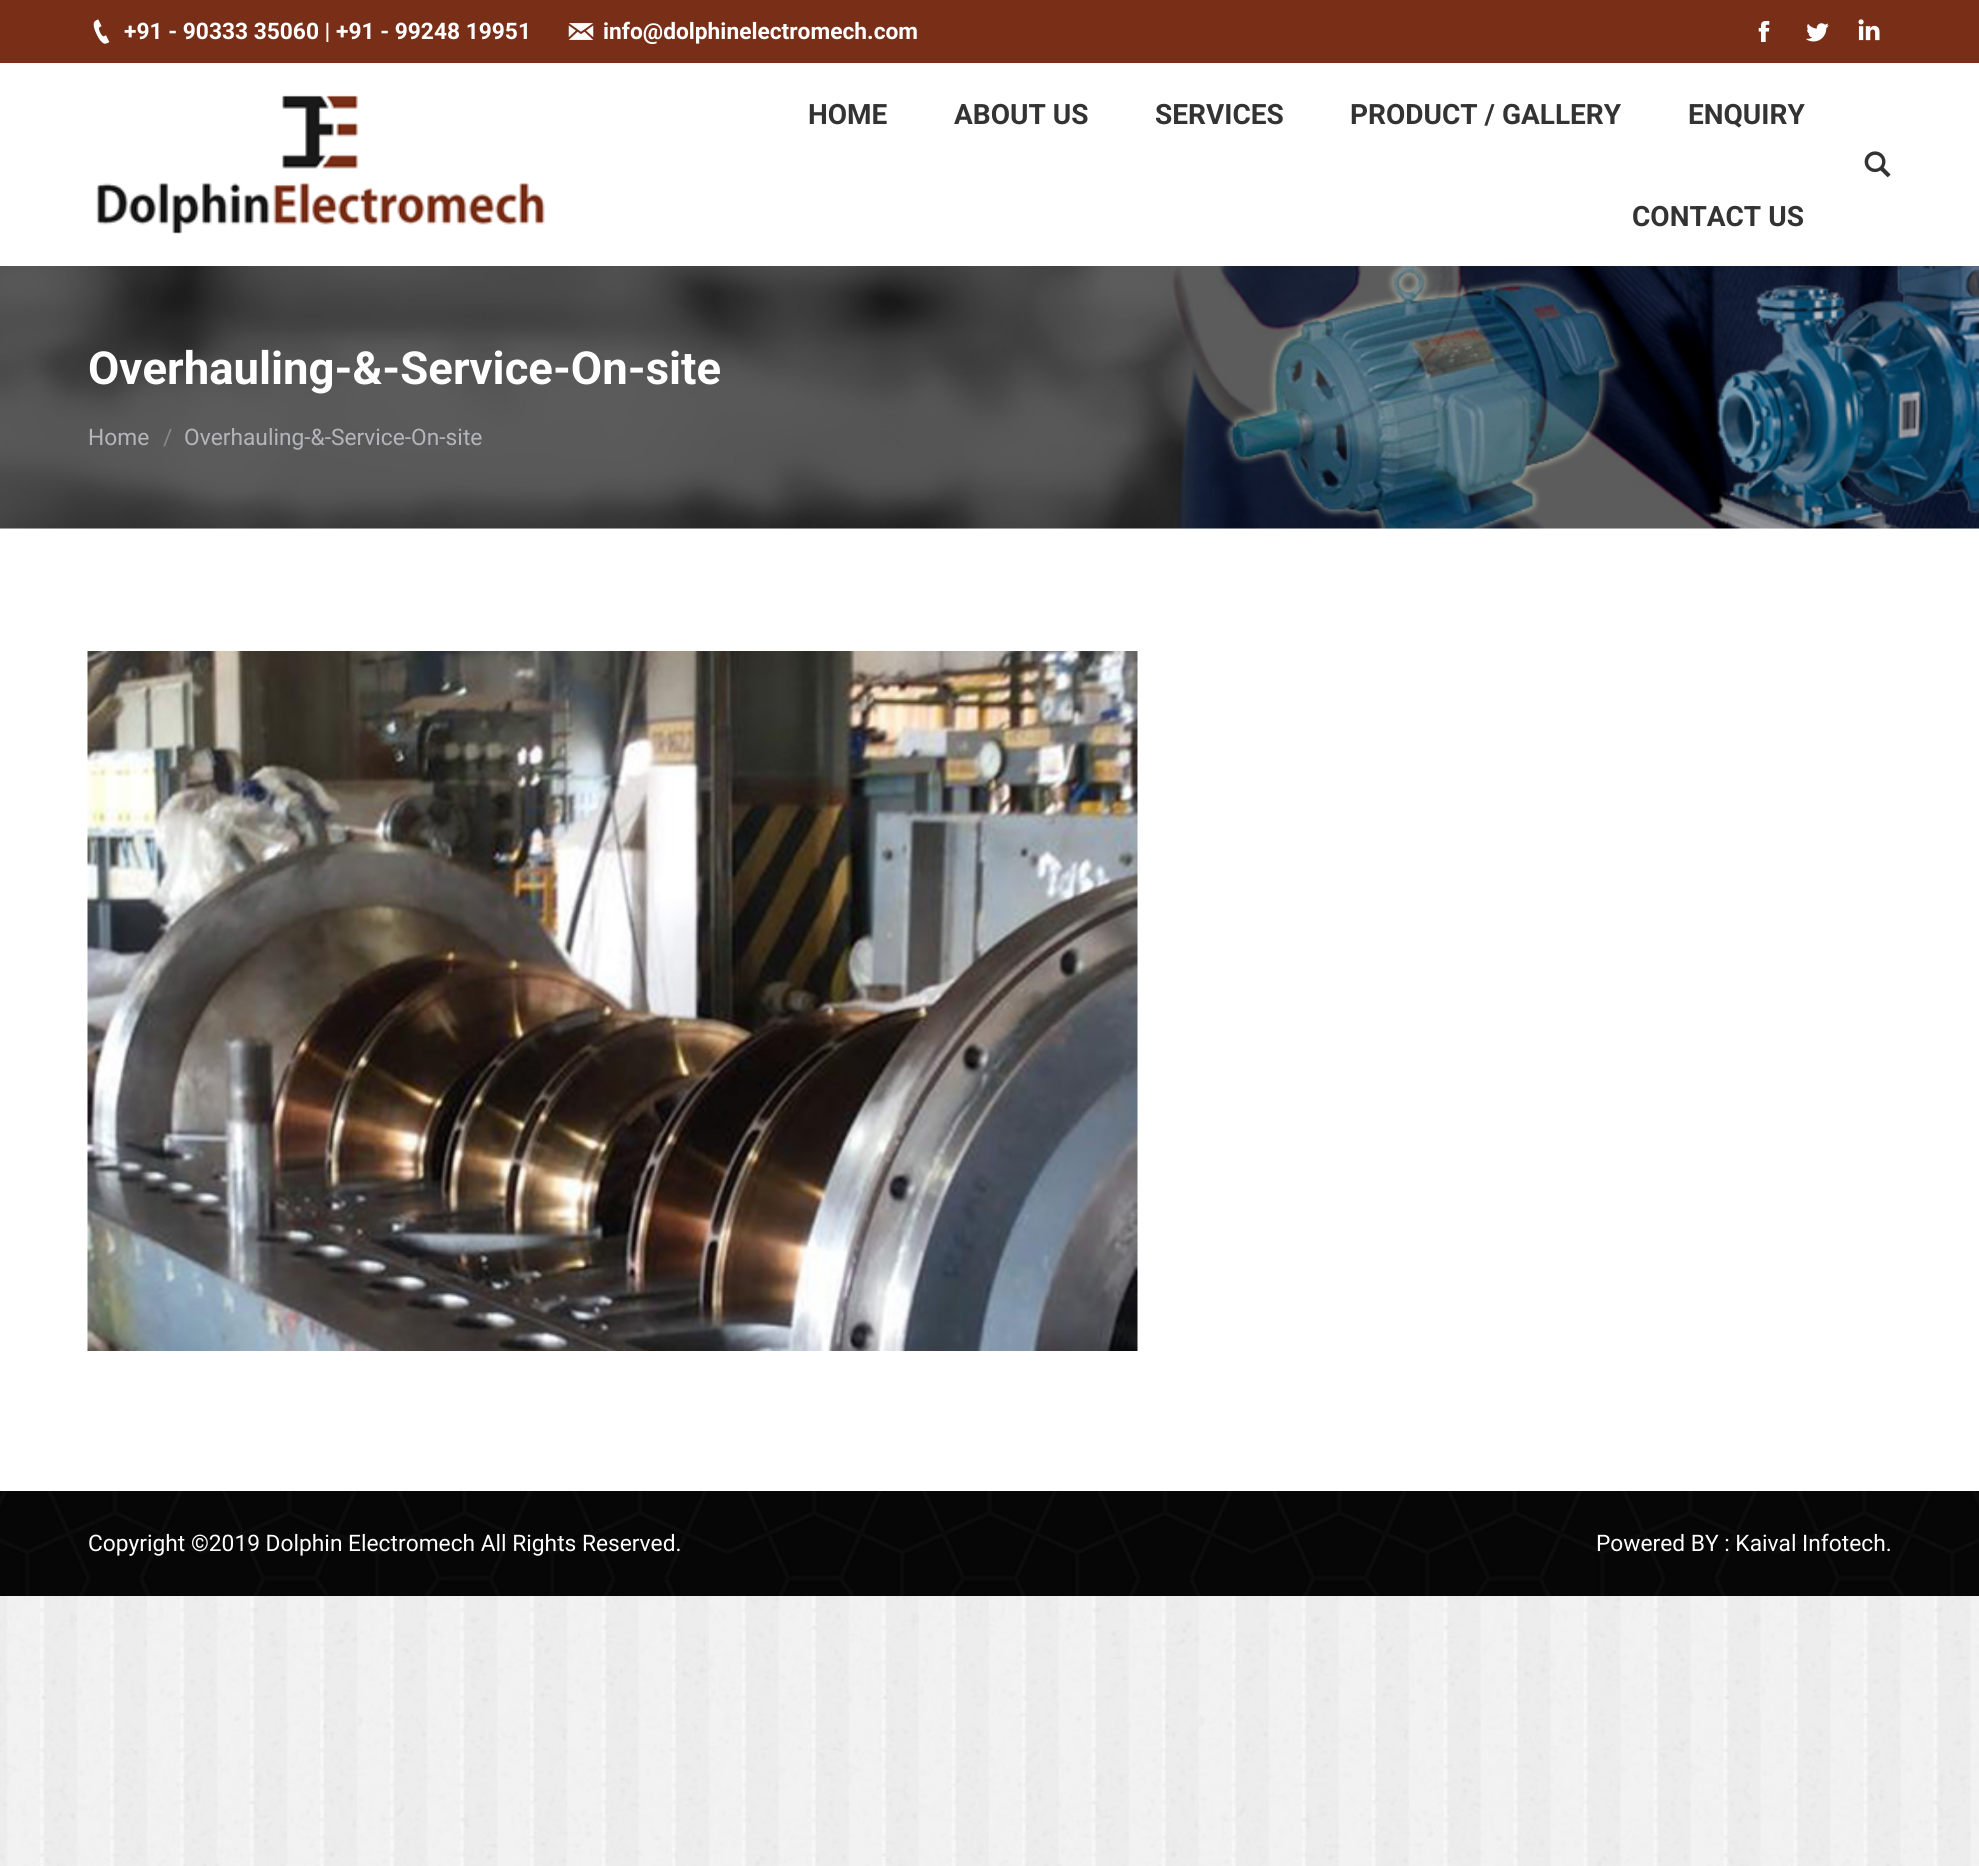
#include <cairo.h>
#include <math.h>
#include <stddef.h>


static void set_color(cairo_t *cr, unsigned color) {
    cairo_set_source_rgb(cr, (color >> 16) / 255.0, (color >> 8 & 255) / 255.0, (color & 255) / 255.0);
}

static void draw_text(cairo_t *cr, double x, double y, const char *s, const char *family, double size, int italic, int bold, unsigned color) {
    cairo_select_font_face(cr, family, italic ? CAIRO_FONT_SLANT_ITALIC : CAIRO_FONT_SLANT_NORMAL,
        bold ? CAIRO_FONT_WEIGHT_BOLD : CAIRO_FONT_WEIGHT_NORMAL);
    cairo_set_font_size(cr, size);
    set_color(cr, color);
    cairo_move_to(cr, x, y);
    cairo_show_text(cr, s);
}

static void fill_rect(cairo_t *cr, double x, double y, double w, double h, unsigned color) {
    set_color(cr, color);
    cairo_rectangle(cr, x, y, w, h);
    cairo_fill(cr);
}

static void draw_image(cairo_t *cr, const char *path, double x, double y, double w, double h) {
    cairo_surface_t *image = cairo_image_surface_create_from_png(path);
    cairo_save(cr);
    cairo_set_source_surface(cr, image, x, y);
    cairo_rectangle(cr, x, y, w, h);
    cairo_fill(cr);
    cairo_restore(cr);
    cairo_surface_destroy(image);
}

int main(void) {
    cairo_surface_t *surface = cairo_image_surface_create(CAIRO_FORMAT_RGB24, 1979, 1866);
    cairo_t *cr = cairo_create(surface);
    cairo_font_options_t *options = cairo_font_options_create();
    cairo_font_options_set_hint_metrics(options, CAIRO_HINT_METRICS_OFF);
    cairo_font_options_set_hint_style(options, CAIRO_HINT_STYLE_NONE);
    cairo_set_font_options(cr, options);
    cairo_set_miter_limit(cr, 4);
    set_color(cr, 0xFFFFFF);
    cairo_paint(cr);
    draw_image(cr, "assets/img1.png", 0, 1596, 1979, 270);
    fill_rect(cr, 0, 0, 1979, 63, 0x792E17);
    draw_image(cr, "assets/img2.png", 93, 19, 17, 25);
    draw_text(cr, 124, 39, "+91 - 90333 35060 | +91 - 99248 19951", "Roboto", 22.75, 0, 1, 0xFFFFFF);
    draw_image(cr, "assets/img3.png", 568, 23, 26, 17);
    draw_text(cr, 603, 39, "info@dolphinelectromech.com", "Roboto", 22.75, 0, 1, 0xFFFFFF);
    draw_image(cr, "assets/img4.png", 1758, 21, 12, 21);
    draw_image(cr, "assets/img5.png", 1806, 23, 23, 19);
    draw_image(cr, "assets/img6.png", 1858, 19, 22, 22);
    draw_image(cr, "assets/img7.png", 96, 95, 449, 139);
    draw_text(cr, 808, 124, "HOME", "Roboto", 28, 0, 1, 0x333333);
    draw_text(cr, 954, 124, "ABOUT US", "Roboto", 28, 0, 1, 0x333333);
    draw_text(cr, 1155, 124, "SERVICES", "Roboto", 28, 0, 1, 0x333333);
    draw_text(cr, 1350, 124, "PRODUCT / GALLERY", "Roboto", 28, 0, 1, 0x333333);
    draw_text(cr, 1688, 124, "ENQUIRY", "Roboto", 28, 0, 1, 0x333333);
    draw_text(cr, 1632, 226, "CONTACT US", "Roboto", 28, 0, 1, 0x333333);
    draw_image(cr, "assets/img8.png", 1864, 151, 27, 27);
    fill_rect(cr, 0, 528, 1979, 1, 0xF7F7F7);
    draw_image(cr, "assets/img9.png", 0, 266, 1979, 263);
    draw_text(cr, 88, 384, "Overhauling-&-Service-On-site", "Roboto", 45.5, 0, 1, 0xFFFFFF);
    draw_text(cr, 88, 445, "Home", "Roboto", 22.75, 0, 0, 0xB4B5BB);
    draw_text(cr, 163, 445, "/", "Roboto", 22.75, 0, 0, 0x87878A);
    draw_text(cr, 184, 445, "Overhauling-&-Service-On-site", "Roboto", 22.75, 0, 0, 0xB4B5BB);
    draw_image(cr, "assets/img10.png", 87, 651, 1051, 700);
    fill_rect(cr, 0, 1491, 1979, 105, 0x000000);
    draw_image(cr, "assets/img11.png", 0, 1491, 1979, 105);
    draw_text(cr, 88, 1551, "Copyright ©2019 Dolphin Electromech All Rights Reserved.", "Roboto", 22.75, 0, 0, 0xFFFFFF);
    draw_text(cr, 1596, 1551, "Powered BY : Kaival Infotech.", "Roboto", 22.75, 0, 0, 0xFFFFFF);
    cairo_surface_write_to_png(surface, "output.png");
    cairo_font_options_destroy(options);
    cairo_destroy(cr);
    cairo_surface_destroy(surface);
    return 0;
}
